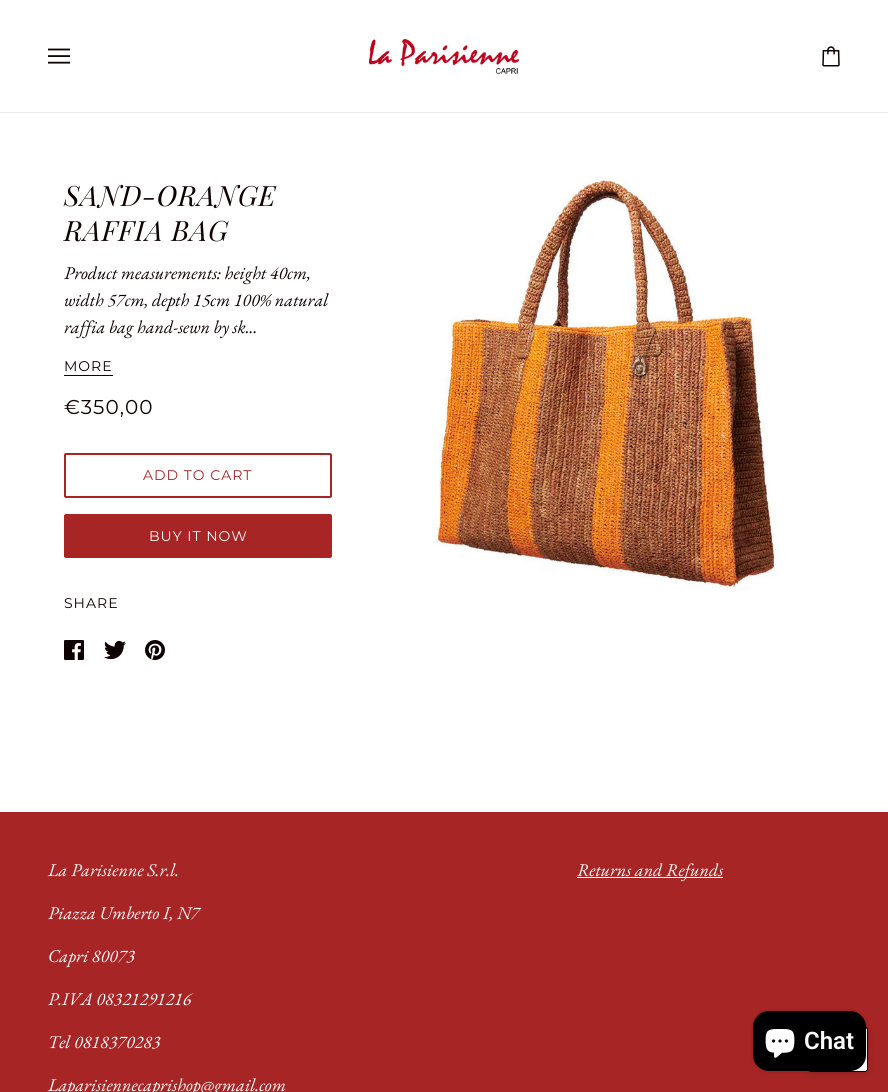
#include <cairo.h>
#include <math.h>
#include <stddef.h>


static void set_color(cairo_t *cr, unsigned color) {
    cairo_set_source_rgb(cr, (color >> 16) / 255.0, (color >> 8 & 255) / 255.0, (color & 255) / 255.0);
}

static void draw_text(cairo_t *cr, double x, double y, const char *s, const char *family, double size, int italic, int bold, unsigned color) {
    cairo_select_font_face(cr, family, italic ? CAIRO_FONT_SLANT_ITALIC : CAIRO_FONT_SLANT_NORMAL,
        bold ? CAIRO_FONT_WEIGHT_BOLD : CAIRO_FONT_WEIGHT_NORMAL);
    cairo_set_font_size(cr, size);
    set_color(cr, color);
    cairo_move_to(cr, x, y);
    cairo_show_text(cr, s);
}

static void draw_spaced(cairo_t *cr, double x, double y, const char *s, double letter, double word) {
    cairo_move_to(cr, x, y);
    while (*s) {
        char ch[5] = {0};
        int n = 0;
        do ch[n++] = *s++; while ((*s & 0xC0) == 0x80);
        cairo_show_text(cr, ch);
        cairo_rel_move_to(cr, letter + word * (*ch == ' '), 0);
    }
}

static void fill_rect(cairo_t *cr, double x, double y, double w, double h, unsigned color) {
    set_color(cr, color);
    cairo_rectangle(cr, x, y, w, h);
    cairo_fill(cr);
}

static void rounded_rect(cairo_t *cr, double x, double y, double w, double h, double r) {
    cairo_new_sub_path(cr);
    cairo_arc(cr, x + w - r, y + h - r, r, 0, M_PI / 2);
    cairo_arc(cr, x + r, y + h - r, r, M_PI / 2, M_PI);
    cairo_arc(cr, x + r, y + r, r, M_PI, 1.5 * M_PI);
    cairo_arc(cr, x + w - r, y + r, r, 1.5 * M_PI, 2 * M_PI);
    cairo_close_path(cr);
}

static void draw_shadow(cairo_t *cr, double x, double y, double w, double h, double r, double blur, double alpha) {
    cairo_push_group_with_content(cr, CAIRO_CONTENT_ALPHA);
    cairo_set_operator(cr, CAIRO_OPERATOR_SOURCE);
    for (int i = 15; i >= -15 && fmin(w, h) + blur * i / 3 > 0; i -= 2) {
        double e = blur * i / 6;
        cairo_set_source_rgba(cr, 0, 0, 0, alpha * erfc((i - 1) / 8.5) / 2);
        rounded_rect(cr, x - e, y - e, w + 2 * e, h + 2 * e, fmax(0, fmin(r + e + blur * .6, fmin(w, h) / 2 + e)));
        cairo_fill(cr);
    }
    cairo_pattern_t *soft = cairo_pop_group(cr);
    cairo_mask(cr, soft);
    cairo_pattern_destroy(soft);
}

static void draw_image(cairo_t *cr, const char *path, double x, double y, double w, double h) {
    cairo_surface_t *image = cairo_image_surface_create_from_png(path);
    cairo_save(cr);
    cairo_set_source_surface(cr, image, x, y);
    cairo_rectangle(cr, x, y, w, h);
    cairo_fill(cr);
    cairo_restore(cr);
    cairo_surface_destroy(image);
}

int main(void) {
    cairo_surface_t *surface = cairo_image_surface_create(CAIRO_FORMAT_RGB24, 888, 1092);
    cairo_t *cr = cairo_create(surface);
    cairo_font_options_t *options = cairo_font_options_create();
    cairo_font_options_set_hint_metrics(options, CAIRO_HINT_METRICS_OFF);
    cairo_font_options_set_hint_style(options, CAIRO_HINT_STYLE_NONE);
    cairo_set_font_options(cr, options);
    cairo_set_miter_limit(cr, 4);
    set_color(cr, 0xFFFFFF);
    cairo_paint(cr);
    fill_rect(cr, 0, 112, 888, 1, 0xEAEAEA);
    draw_image(cr, "assets/img1.png", 48, 48, 22, 16);
    draw_image(cr, "assets/img2.png", 369, 39, 150, 35);
    draw_image(cr, "assets/img3.png", 822, 46, 18, 21);
    cairo_select_font_face(cr, "Playfair Display", CAIRO_FONT_SLANT_ITALIC, CAIRO_FONT_WEIGHT_NORMAL);
    cairo_set_font_size(cr, 28);
    set_color(cr, 0x0E0101);
    draw_spaced(cr, 64, 206, "SAND-ORANGE", 0.75, 0);
    draw_spaced(cr, 64, 241, "RAFFIA BAG", 0.75, 0);
    draw_text(cr, 64, 279, "Product measurements: height 40cm,", "EB Garamond", 18, 1, 0, 0x0E0101);
    draw_text(cr, 64, 306, "width 57cm, depth 15cm 100% natural", "EB Garamond", 18, 1, 0, 0x0E0101);
    draw_text(cr, 64, 333, "raffia bag hand-sewn by sk...", "EB Garamond", 18, 1, 0, 0x0E0101);
    cairo_select_font_face(cr, "Montserrat", CAIRO_FONT_SLANT_NORMAL, CAIRO_FONT_WEIGHT_NORMAL);
    cairo_set_font_size(cr, 14);
    draw_spaced(cr, 64, 371, "MORE", 1, 0);
    fill_rect(cr, 64, 375, 49, 1, 0x0E0101);
    cairo_set_font_size(cr, 20);
    draw_spaced(cr, 64, 414, "€350,00", 1, 0);
    rounded_rect(cr, 65, 454, 266, 43, 1);
    set_color(cr, 0xA82525);
    cairo_stroke(cr);
    cairo_set_font_size(cr, 14);
    draw_spaced(cr, 143, 480, "ADD TO CART", 1, 0);
    rounded_rect(cr, 64, 514, 268, 44, 2);
    cairo_fill(cr);
    set_color(cr, 0xFCFCFC);
    draw_spaced(cr, 149, 541, "BUY IT NOW", 1, 0);
    set_color(cr, 0x0E0101);
    draw_spaced(cr, 64, 608, "SHARE", 1, 0);
    draw_image(cr, "assets/img4.png", 64, 640, 20, 20);
    draw_image(cr, "assets/img5.png", 104, 640, 22, 20);
    draw_image(cr, "assets/img6.png", 145, 640, 20, 20);
    draw_image(cr, "assets/img7.png", 434, 176, 343, 415);
    fill_rect(cr, 0, 812, 888, 280, 0xA82525);
    draw_text(cr, 48, 876, "La Parisienne S.r.l.", "EB Garamond", 18, 1, 0, 0xFCFCFC);
    draw_text(cr, 48, 919, "Piazza Umberto I, N7", "EB Garamond", 18, 1, 0, 0xFCFCFC);
    draw_text(cr, 48, 962, "Capri 80073", "EB Garamond", 18, 1, 0, 0xFCFCFC);
    draw_text(cr, 48, 1005, "P.IVA 08321291216", "EB Garamond", 18, 1, 0, 0xFCFCFC);
    draw_text(cr, 48, 1048, "Tel 0818370283", "EB Garamond", 18, 1, 0, 0xFCFCFC);
    draw_text(cr, 48, 1091, "Laparisiennecaprishop@gmail.com", "EB Garamond", 18, 1, 0, 0xFCFCFC);
    fill_rect(cr, 577, 877, 146, 1, 0xFCFCFC);
    draw_text(cr, 577, 876, "Returns and Refunds", "EB Garamond", 18, 1, 0, 0xFCFCFC);
    set_color(cr, 0x000000);
    draw_shadow(cr, 808, 1027, 60, 45, 3, 5, 0.15);
    set_color(cr, 0xFFFFFF);
    rounded_rect(cr, 808.5, 1027.5, 59, 44, 2.5);
    cairo_fill_preserve(cr);
    set_color(cr, 0x000000);
    cairo_set_line_width(cr, 1);
    cairo_stroke(cr);
    set_color(cr, 0x000000);
    draw_shadow(cr, 753, 1011, 113, 60, 16, 2.5, 0.15);
    set_color(cr, 0x000000);
    rounded_rect(cr, 753, 1011, 113, 60, 16);
    cairo_fill(cr);
    draw_image(cr, "assets/img8.png", 765, 1029, 30, 29);
    draw_text(cr, 804, 1049, "Chat", "Roboto SemiBold", 24, 0, 0, 0xFCFCFC);
    cairo_surface_write_to_png(surface, "output.png");
    cairo_font_options_destroy(options);
    cairo_destroy(cr);
    cairo_surface_destroy(surface);
    return 0;
}
